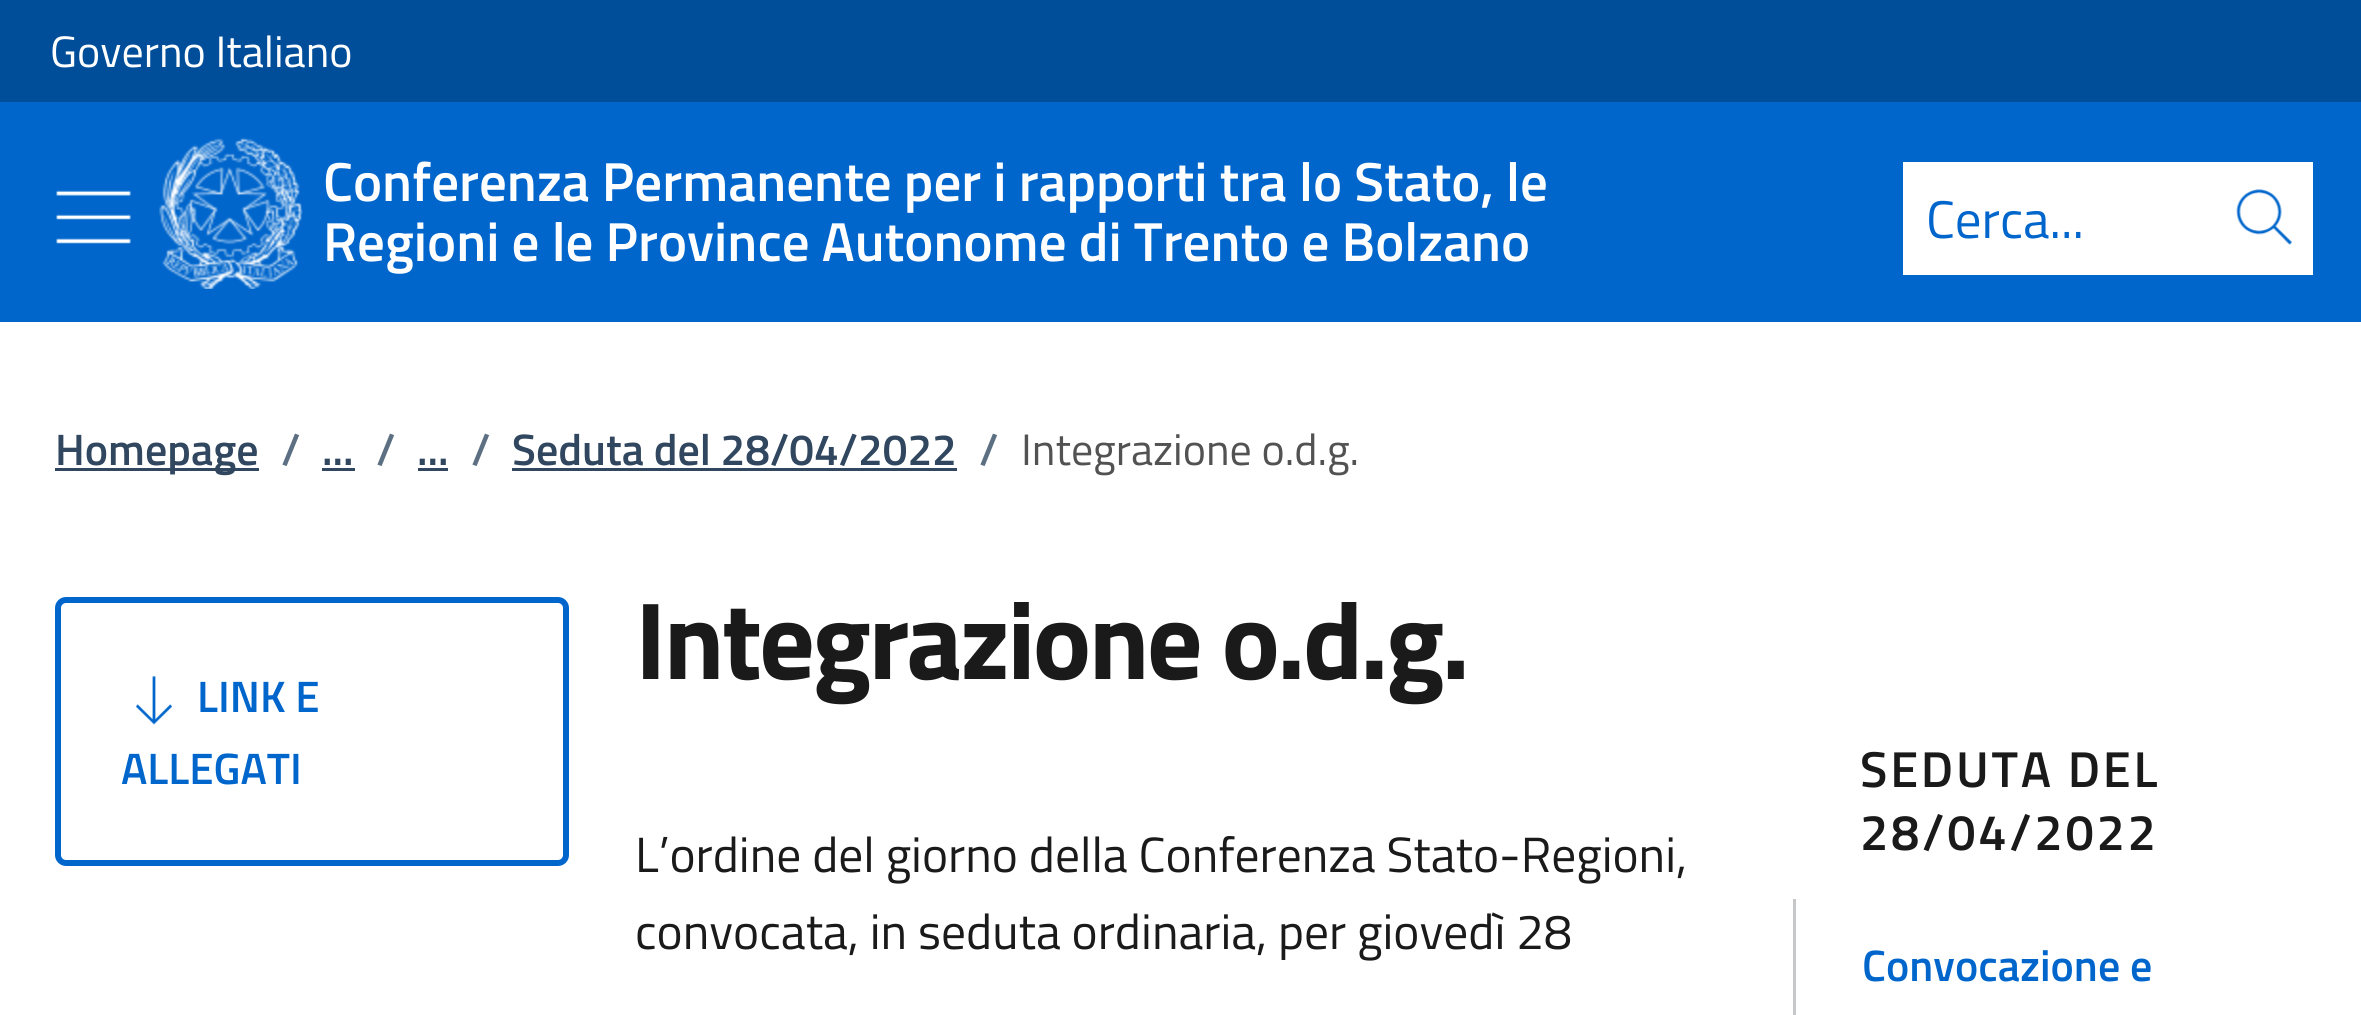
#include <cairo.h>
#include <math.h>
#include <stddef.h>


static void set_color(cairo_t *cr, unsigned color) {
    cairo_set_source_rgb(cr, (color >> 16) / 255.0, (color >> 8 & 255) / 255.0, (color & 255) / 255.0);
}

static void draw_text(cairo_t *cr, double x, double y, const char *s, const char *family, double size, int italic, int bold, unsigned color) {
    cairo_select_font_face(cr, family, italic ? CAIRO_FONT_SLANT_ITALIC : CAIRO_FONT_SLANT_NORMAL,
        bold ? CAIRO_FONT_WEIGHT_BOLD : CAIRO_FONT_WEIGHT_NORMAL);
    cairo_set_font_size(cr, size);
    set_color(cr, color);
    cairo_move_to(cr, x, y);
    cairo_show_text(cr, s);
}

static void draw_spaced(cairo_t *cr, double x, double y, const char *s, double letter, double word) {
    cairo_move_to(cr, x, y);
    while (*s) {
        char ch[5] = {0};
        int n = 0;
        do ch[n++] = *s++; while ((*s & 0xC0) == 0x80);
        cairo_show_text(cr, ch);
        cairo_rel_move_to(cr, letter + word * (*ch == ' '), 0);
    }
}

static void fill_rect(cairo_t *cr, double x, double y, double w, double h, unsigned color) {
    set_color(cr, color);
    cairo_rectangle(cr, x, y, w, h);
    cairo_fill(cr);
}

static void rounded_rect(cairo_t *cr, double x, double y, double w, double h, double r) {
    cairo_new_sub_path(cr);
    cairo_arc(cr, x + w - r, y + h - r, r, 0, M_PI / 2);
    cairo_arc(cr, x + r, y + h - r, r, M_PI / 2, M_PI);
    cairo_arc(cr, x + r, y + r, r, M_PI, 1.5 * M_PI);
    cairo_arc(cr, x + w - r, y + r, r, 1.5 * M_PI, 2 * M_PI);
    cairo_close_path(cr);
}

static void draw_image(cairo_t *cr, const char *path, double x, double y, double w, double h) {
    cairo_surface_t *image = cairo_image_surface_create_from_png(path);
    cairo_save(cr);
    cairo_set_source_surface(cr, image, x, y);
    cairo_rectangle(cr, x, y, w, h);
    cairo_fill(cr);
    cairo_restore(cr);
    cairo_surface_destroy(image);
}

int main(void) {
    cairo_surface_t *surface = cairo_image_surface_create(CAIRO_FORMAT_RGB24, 2361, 1015);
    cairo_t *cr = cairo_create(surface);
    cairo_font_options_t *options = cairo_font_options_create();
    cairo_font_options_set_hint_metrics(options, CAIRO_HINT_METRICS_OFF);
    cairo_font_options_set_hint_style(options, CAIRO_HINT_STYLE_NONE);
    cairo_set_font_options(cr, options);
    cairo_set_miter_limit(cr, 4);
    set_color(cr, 0xFFFFFF);
    cairo_paint(cr);
    fill_rect(cr, 0, 0, 2361, 102, 0x004D99);
    draw_text(cr, 50, 67, "Governo Italiano", "Titillium Web", 44, 0, 0, 0xFFFFFF);
    fill_rect(cr, 0, 102, 2361, 220, 0x0066CC);
    draw_image(cr, "assets/img1.png", 56, 190, 75, 54);
    draw_image(cr, "assets/img2.png", 159, 137, 144, 152);
    draw_text(cr, 323, 201, "Conferenza Permanente per i rapporti tra lo Stato, le", "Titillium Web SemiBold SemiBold", 55, 0, 0, 0xFFFFFF);
    draw_text(cr, 323, 261, "Regioni e le Province Autonome di Trento e Bolzano", "Titillium Web SemiBold SemiBold", 55, 0, 0, 0xFFFFFF);
    fill_rect(cr, 1903, 162, 410, 113, 0xFFFFFF);
    draw_text(cr, 1926, 238, "Cerca...", "Titillium Web", 53, 0, 0, 0x0066CC);
    draw_image(cr, "assets/img3.png", 2236, 189, 57, 56);
    fill_rect(cr, 55, 468, 204, 3, 0x30475F);
    draw_text(cr, 55, 465, "Homepage", "Titillium Web SemiBold SemiBold", 44, 0, 0, 0x30475F);
    draw_text(cr, 281, 465, "/", "Titillium Web SemiBold SemiBold", 44, 0, 0, 0x5D7083);
    draw_text(cr, 322, 465, "...", "Titillium Web SemiBold SemiBold", 44, 0, 0, 0x30475F);
    fill_rect(cr, 322, 468, 33, 3, 0x30475F);
    draw_text(cr, 376, 465, "/", "Titillium Web SemiBold SemiBold", 44, 0, 0, 0x5D7083);
    draw_text(cr, 417, 465, "...", "Titillium Web SemiBold SemiBold", 44, 0, 0, 0x30475F);
    fill_rect(cr, 418, 468, 30, 3, 0x30475F);
    draw_text(cr, 471, 465, "/", "Titillium Web SemiBold SemiBold", 44, 0, 0, 0x5D7083);
    draw_text(cr, 512, 465, "Seduta del 28/04/2022", "Titillium Web SemiBold SemiBold", 44, 0, 0, 0x30475F);
    fill_rect(cr, 512, 468, 445, 3, 0x30475F);
    draw_text(cr, 979, 465, "/", "Titillium Web SemiBold SemiBold", 44, 0, 0, 0x5D7083);
    draw_text(cr, 1021, 465, "Integrazione o.d.g.", "Titillium Web", 44, 0, 0, 0x525252);
    rounded_rect(cr, 58, 600, 508, 263, 8);
    set_color(cr, 0x0066CC);
    cairo_set_line_width(cr, 6);
    cairo_stroke(cr);
    draw_image(cr, "assets/img4.png", 136, 676, 36, 49);
    draw_text(cr, 197, 712, "LINK E", "Titillium Web SemiBold SemiBold", 44, 0, 0, 0x0066CC);
    draw_text(cr, 121, 784, "ALLEGATI", "Titillium Web SemiBold SemiBold", 44, 0, 0, 0x0066CC);
    cairo_select_font_face(cr, "Titillium Web", CAIRO_FONT_SLANT_NORMAL, CAIRO_FONT_WEIGHT_BOLD);
    cairo_set_font_size(cr, 110);
    set_color(cr, 0x1A1A1A);
    draw_spaced(cr, 635, 679, "Integrazione o.d.g.", -2.75, 0);
    draw_text(cr, 635, 872, "L’ordine del giorno della Conferenza Stato-Regioni,", "Titillium Web", 49.5, 0, 0, 0x1A1A1A);
    draw_text(cr, 635, 949, "convocata, in seduta ordinaria, per giovedì 28", "Titillium Web", 49.5, 0, 0, 0x1A1A1A);
    cairo_select_font_face(cr, "Titillium Web SemiBold SemiBold", CAIRO_FONT_SLANT_NORMAL, CAIRO_FONT_WEIGHT_NORMAL);
    cairo_set_font_size(cr, 50.5);
    draw_spaced(cr, 1860, 787, "SEDUTA DEL", 2.75, 0);
    draw_spaced(cr, 1860, 850, "28/04/2022", 2.75, 0);
    fill_rect(cr, 1793, 899, 3, 116, 0xC5C7C9);
    draw_text(cr, 1862, 981, "Convocazione e", "Titillium Web SemiBold SemiBold", 44, 0, 0, 0x0066CC);
    cairo_surface_write_to_png(surface, "output.png");
    cairo_font_options_destroy(options);
    cairo_destroy(cr);
    cairo_surface_destroy(surface);
    return 0;
}
